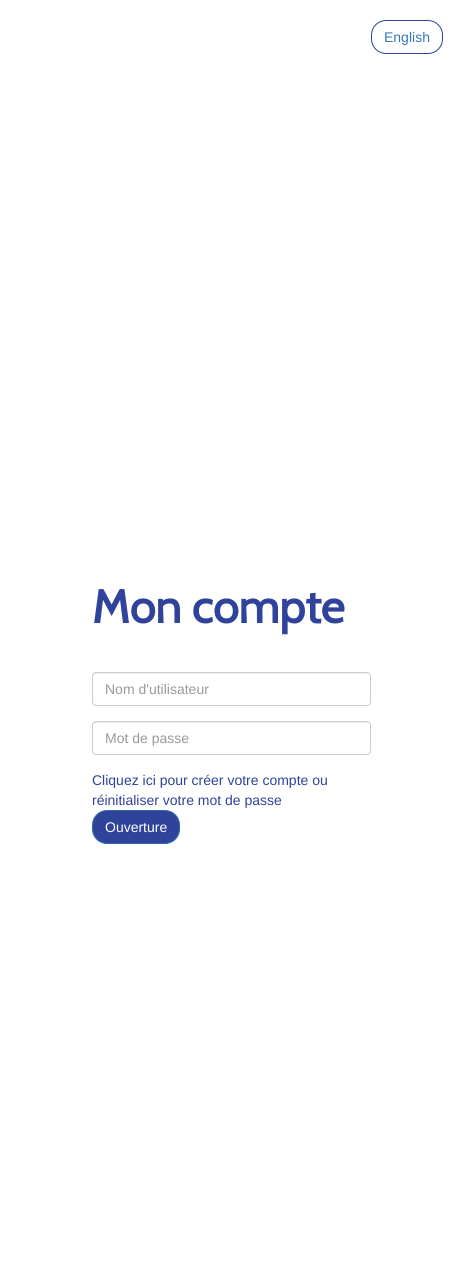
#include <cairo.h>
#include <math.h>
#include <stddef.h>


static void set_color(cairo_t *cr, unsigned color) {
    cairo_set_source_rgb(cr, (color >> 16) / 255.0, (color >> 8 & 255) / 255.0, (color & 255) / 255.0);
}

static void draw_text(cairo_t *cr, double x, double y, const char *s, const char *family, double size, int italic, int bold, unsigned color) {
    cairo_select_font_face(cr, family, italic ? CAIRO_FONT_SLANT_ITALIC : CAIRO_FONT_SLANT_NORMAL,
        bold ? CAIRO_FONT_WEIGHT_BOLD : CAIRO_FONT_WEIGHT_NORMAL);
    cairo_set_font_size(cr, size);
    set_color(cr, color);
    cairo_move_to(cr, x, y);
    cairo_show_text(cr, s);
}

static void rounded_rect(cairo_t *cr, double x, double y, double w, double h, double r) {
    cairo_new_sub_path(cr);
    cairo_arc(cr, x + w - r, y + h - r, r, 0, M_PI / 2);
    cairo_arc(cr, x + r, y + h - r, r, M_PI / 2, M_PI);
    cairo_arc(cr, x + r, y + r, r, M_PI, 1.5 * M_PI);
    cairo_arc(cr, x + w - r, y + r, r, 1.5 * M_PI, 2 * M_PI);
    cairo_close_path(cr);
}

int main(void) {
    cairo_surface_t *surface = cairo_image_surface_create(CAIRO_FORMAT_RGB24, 463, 1278);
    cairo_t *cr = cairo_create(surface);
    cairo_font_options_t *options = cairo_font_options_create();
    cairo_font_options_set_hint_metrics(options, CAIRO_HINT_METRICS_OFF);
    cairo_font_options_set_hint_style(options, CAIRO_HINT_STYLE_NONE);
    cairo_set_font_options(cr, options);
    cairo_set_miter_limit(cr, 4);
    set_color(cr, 0xFFFFFF);
    cairo_paint(cr);
    rounded_rect(cr, 371.5, 20.5, 71, 33, 14.5);
    set_color(cr, 0x2F439B);
    cairo_set_line_width(cr, 1);
    cairo_stroke(cr);
    draw_text(cr, 384, 42, "English", "Liberation Sans", 14, 0, 0, 0x337AB7);
    draw_text(cr, 92, 623, "Mon compte", "Cabin", 46.5, 0, 1, 0x2F439B);
    set_color(cr, 0xECECEC);
    cairo_new_path(cr);
    cairo_move_to(cr, 96, 674);
    cairo_line_to(cr, 367, 674);
    cairo_curve_to(cr, 369, 674, 370, 675, 370, 677);
    cairo_line_to(cr, 370, 676);
    cairo_curve_to(cr, 370, 674, 369, 673, 367, 673);
    cairo_line_to(cr, 96, 673);
    cairo_curve_to(cr, 94, 673, 93, 674, 93, 676);
    cairo_line_to(cr, 93, 677);
    cairo_curve_to(cr, 93, 675, 94, 674, 96, 674);
    cairo_close_path(cr);
    cairo_fill(cr);
    rounded_rect(cr, 92.5, 672.5, 278, 33, 3.5);
    set_color(cr, 0xCCCCCC);
    cairo_stroke(cr);
    draw_text(cr, 105, 694, "Nom d'utilisateur", "Liberation Sans", 14, 0, 0, 0x999999);
    set_color(cr, 0xECECEC);
    cairo_new_path(cr);
    cairo_move_to(cr, 96, 723);
    cairo_line_to(cr, 367, 723);
    cairo_curve_to(cr, 369, 723, 370, 724, 370, 726);
    cairo_line_to(cr, 370, 725);
    cairo_curve_to(cr, 370, 723, 369, 722, 367, 722);
    cairo_line_to(cr, 96, 722);
    cairo_curve_to(cr, 94, 722, 93, 723, 93, 725);
    cairo_line_to(cr, 93, 726);
    cairo_curve_to(cr, 93, 724, 94, 723, 96, 723);
    cairo_close_path(cr);
    cairo_fill(cr);
    rounded_rect(cr, 92.5, 721.5, 278, 33, 3.5);
    set_color(cr, 0xCCCCCC);
    cairo_stroke(cr);
    draw_text(cr, 105, 743, "Mot de passe", "Liberation Sans", 14, 0, 0, 0x999999);
    draw_text(cr, 92, 785, "Cliquez ici pour créer votre compte ou", "Liberation Sans", 14, 0, 0, 0x2F439B);
    draw_text(cr, 92, 805, "réinitialiser votre mot de passe", "Liberation Sans", 14, 0, 0, 0x2F439B);
    rounded_rect(cr, 92.5, 810.5, 87, 33, 14.5);
    cairo_fill_preserve(cr);
    set_color(cr, 0x2E6DA4);
    cairo_stroke(cr);
    draw_text(cr, 105, 832, "Ouverture", "Liberation Sans", 14, 0, 0, 0xFFFFFF);
    cairo_surface_write_to_png(surface, "output.png");
    cairo_font_options_destroy(options);
    cairo_destroy(cr);
    cairo_surface_destroy(surface);
    return 0;
}
